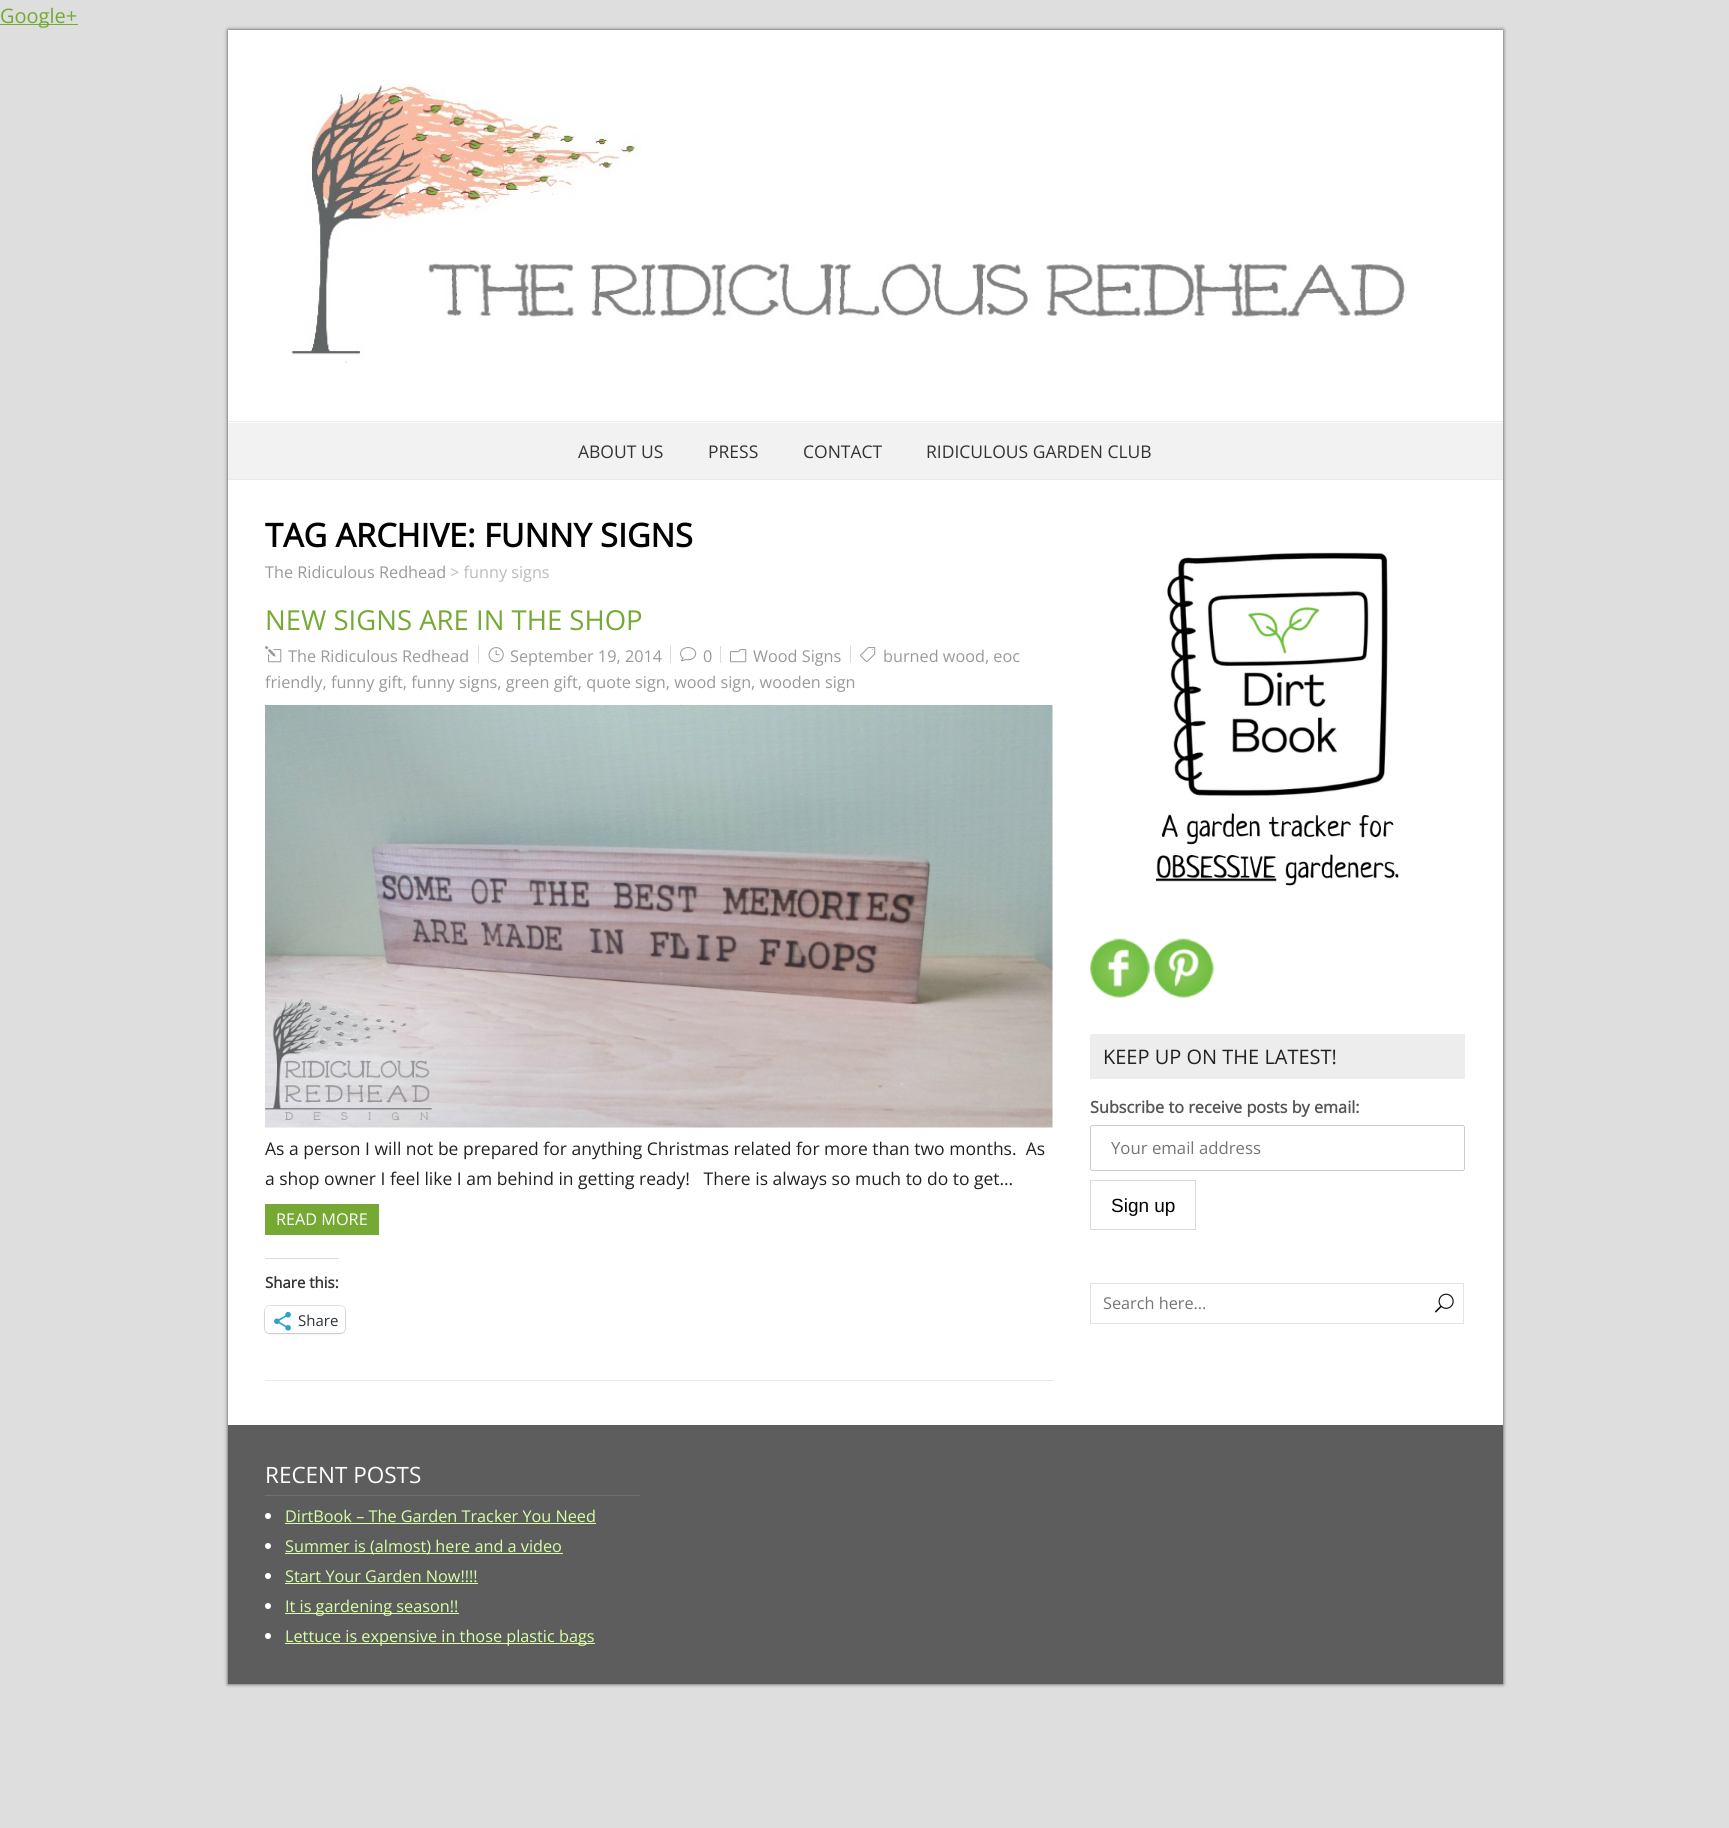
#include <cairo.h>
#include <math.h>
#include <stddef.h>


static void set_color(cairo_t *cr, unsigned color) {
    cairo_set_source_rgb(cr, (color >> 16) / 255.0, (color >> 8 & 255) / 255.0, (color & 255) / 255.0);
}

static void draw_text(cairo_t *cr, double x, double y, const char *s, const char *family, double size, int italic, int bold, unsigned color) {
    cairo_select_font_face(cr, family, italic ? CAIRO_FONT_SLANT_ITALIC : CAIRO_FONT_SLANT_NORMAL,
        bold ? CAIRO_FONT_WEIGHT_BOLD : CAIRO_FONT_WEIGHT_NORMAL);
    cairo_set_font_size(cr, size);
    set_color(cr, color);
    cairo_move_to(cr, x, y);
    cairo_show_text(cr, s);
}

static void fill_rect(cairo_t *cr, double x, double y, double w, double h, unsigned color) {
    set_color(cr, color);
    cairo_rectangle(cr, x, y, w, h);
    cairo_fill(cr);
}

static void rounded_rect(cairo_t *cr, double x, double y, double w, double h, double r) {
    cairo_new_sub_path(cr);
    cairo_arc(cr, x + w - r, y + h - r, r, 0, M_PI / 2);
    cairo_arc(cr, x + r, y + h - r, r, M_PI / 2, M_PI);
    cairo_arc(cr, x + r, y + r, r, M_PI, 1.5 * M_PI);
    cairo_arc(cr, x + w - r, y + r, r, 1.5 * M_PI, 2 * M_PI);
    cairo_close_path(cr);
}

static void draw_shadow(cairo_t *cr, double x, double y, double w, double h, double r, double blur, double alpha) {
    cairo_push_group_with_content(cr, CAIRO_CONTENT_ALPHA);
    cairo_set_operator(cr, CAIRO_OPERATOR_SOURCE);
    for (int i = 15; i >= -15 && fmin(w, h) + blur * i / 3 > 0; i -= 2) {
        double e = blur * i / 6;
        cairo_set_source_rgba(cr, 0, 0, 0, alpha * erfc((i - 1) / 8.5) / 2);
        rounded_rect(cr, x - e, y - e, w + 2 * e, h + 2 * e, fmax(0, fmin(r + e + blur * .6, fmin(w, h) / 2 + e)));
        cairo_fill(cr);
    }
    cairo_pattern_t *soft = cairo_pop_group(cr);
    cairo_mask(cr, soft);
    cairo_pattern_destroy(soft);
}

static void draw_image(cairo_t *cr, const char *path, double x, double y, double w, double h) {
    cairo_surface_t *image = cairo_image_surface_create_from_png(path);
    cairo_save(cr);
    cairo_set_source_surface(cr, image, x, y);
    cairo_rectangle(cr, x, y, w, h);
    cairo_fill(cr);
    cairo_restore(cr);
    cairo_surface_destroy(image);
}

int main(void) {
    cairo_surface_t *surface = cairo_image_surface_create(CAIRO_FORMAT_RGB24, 1729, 1828);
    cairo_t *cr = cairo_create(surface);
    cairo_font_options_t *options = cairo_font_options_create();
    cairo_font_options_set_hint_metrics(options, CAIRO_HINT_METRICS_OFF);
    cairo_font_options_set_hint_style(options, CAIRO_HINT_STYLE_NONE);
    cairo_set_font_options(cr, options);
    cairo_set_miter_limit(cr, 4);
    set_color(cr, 0xDEDEDE);
    cairo_paint(cr);
    fill_rect(cr, 0, 24, 78, 1, 0x76A934);
    draw_text(cr, 0, 23, "Google+", "Open Sans", 20, 0, 0, 0x76A934);
    set_color(cr, 0x444444);
    draw_shadow(cr, 228, 30, 1275, 1654, 0, 2, 1);
    fill_rect(cr, 228, 30, 1275, 1395, 0xFFFFFF);
    fill_rect(cr, 228, 421, 1275, 1, 0xEBEBEB);
    draw_image(cr, "assets/img1.png", 291, 84, 1116, 280);
    fill_rect(cr, 228, 423, 1275, 56, 0xF2F2F2);
    fill_rect(cr, 228, 479, 1275, 1, 0xEBEBEB);
    draw_text(cr, 578, 458, "ABOUT US", "Open Sans", 17.5, 0, 0, 0x333333);
    draw_text(cr, 708, 458, "PRESS", "Open Sans", 17.5, 0, 0, 0x333333);
    draw_text(cr, 803, 458, "CONTACT", "Open Sans", 17.5, 0, 0, 0x333333);
    draw_text(cr, 926, 458, "RIDICULOUS GARDEN CLUB", "Open Sans", 17.5, 0, 0, 0x333333);
    draw_text(cr, 265, 547, "TAG ARCHIVE: FUNNY SIGNS", "Open Sans", 32.5, 0, 1, 0x000000);
    draw_text(cr, 265, 578, "The Ridiculous Redhead", "Open Sans", 16.25, 0, 0, 0x999999);
    draw_text(cr, 450, 578, "> funny signs", "Open Sans", 16.25, 0, 0, 0xBBBBBB);
    fill_rect(cr, 265, 1380, 788, 1, 0xE8E8E8);
    draw_text(cr, 265, 630, "NEW SIGNS ARE IN THE SHOP", "Open Sans", 27.5, 0, 0, 0x76A934);
    draw_image(cr, "assets/img2.png", 265, 646, 17, 17);
    draw_text(cr, 288, 662, "The Ridiculous Redhead", "Open Sans", 16.25, 0, 0, 0x999999);
    draw_image(cr, "assets/img3.png", 488, 647, 16, 16);
    draw_text(cr, 510, 662, "September 19, 2014", "Open Sans", 16.25, 0, 0, 0x999999);
    fill_rect(cr, 478, 646, 1, 17, 0xDBDBDB);
    draw_image(cr, "assets/img4.png", 680, 647, 17, 15);
    draw_text(cr, 703, 662, "0", "Open Sans", 16.25, 0, 0, 0x999999);
    fill_rect(cr, 670, 646, 1, 17, 0xDBDBDB);
    draw_image(cr, "assets/img5.png", 730, 649, 17, 14);
    draw_text(cr, 753, 662, "Wood Signs", "Open Sans", 16.25, 0, 0, 0x999999);
    fill_rect(cr, 720, 646, 1, 17, 0xDBDBDB);
    draw_image(cr, "assets/img6.png", 860, 647, 16, 16);
    draw_text(cr, 883, 662, "burned wood, eoc", "Open Sans", 16.25, 0, 0, 0x999999);
    fill_rect(cr, 850, 646, 1, 17, 0xDBDBDB);
    draw_text(cr, 265, 688, "friendly, funny gift, funny signs, green gift, quote sign, wood sign, wooden sign", "Open Sans", 16.25, 0, 0, 0x999999);
    draw_image(cr, "assets/img7.png", 265, 705, 788, 423);
    draw_text(cr, 265, 1155, "As a person I will not be prepared for anything Christmas related for more than two months.  As", "Open Sans", 17.5, 0, 0, 0x222222);
    draw_text(cr, 265, 1185, "a shop owner I feel like I am behind in getting ready!   There is always so much to do to get…", "Open Sans", 17.5, 0, 0, 0x222222);
    fill_rect(cr, 265, 1204, 114, 31, 0x76A934);
    draw_text(cr, 276, 1225, "READ MORE", "Open Sans", 16.25, 0, 0, 0xFFFFFF);
    fill_rect(cr, 265, 1258, 74, 1, 0xDCDCDE);
    draw_text(cr, 265, 1288, "Share this:", "Open Sans", 15, 0, 1, 0x333333);
    rounded_rect(cr, 264.5, 1305.5, 81, 28, 5.5);
    set_color(cr, 0xE0E0E0);
    cairo_set_line_width(cr, 1);
    cairo_stroke(cr);
    set_color(cr, 0x000000);
    draw_shadow(cr, 265, 1308, 80, 26, 5, 1, 0.12);
    set_color(cr, 0xFFFFFF);
    rounded_rect(cr, 265, 1306, 80, 27, 5);
    cairo_fill(cr);
    draw_image(cr, "assets/img8.png", 274, 1311, 17, 20);
    draw_text(cr, 298, 1326, "Share", "Open Sans", 15, 0, 0, 0x2C3338);
    draw_image(cr, "assets/img9.png", 1155, 552, 244, 334);
    draw_image(cr, "assets/img10.png", 1090, 938, 60, 60);
    draw_image(cr, "assets/img11.png", 1153, 938, 61, 60);
    fill_rect(cr, 1090, 1034, 375, 45, 0xEDEDED);
    draw_text(cr, 1103, 1064, "KEEP UP ON THE LATEST!", "Open Sans", 20, 0, 0, 0x222222);
    draw_text(cr, 1090, 1113, "Subscribe to receive posts by email:", "Open Sans", 16.25, 0, 1, 0x555555);
    rounded_rect(cr, 1090.5, 1125.5, 374, 45, 2);
    set_color(cr, 0xCCCCCC);
    cairo_stroke(cr);
    draw_text(cr, 1111, 1154, "Your email address", "Open Sans", 16.75, 0, 0, 0x757575);
    cairo_rectangle(cr, 1090.5, 1180.5, 105, 49);
    set_color(cr, 0xD9D9D9);
    cairo_stroke(cr);
    draw_text(cr, 1111, 1212, "Sign up", "Liberation Sans", 19, 0, 0, 0x000000);
    cairo_rectangle(cr, 1090.5, 1283.5, 373, 40);
    set_color(cr, 0xE3E3E3);
    cairo_stroke(cr);
    draw_text(cr, 1103, 1309, "Search here...", "Open Sans", 16.25, 0, 0, 0x757575);
    draw_image(cr, "assets/img12.png", 1435, 1293, 19, 20);
    fill_rect(cr, 228, 1425, 1275, 259, 0x5D5D5D);
    fill_rect(cr, 265, 1495, 375, 1, 0x707070);
    draw_text(cr, 265, 1483, "RECENT POSTS", "Open Sans", 22.5, 0, 0, 0xFFFFFF);
    cairo_new_path(cr);
    cairo_arc(cr, 268, 1516, 3, 0, 2 * M_PI);
    cairo_fill(cr);
    draw_text(cr, 285, 1522, "DirtBook – The Garden Tracker You Need", "Open Sans", 16.25, 0, 0, 0xD9FFA8);
    fill_rect(cr, 285, 1523, 311, 1, 0xD9FFA8);
    set_color(cr, 0xFFFFFF);
    cairo_new_path(cr);
    cairo_arc(cr, 268, 1546, 3, 0, 2 * M_PI);
    cairo_fill(cr);
    fill_rect(cr, 285, 1553, 278, 1, 0xD9FFA8);
    draw_text(cr, 285, 1552, "Summer is (almost) here and a video", "Open Sans", 16.25, 0, 0, 0xD9FFA8);
    set_color(cr, 0xFFFFFF);
    cairo_new_path(cr);
    cairo_arc(cr, 268, 1576, 3, 0, 2 * M_PI);
    cairo_fill(cr);
    draw_text(cr, 285, 1582, "Start Your Garden Now!!!!", "Open Sans", 16.25, 0, 0, 0xD9FFA8);
    fill_rect(cr, 285, 1583, 193, 1, 0xD9FFA8);
    set_color(cr, 0xFFFFFF);
    cairo_new_path(cr);
    cairo_arc(cr, 268, 1606, 3, 0, 2 * M_PI);
    cairo_fill(cr);
    fill_rect(cr, 285, 1613, 174, 1, 0xD9FFA8);
    draw_text(cr, 285, 1612, "It is gardening season!!", "Open Sans", 16.25, 0, 0, 0xD9FFA8);
    set_color(cr, 0xFFFFFF);
    cairo_new_path(cr);
    cairo_arc(cr, 268, 1636, 3, 0, 2 * M_PI);
    cairo_fill(cr);
    fill_rect(cr, 285, 1643, 310, 1, 0xD9FFA8);
    draw_text(cr, 285, 1642, "Lettuce is expensive in those plastic bags", "Open Sans", 16.25, 0, 0, 0xD9FFA8);
    cairo_surface_write_to_png(surface, "output.png");
    cairo_font_options_destroy(options);
    cairo_destroy(cr);
    cairo_surface_destroy(surface);
    return 0;
}
